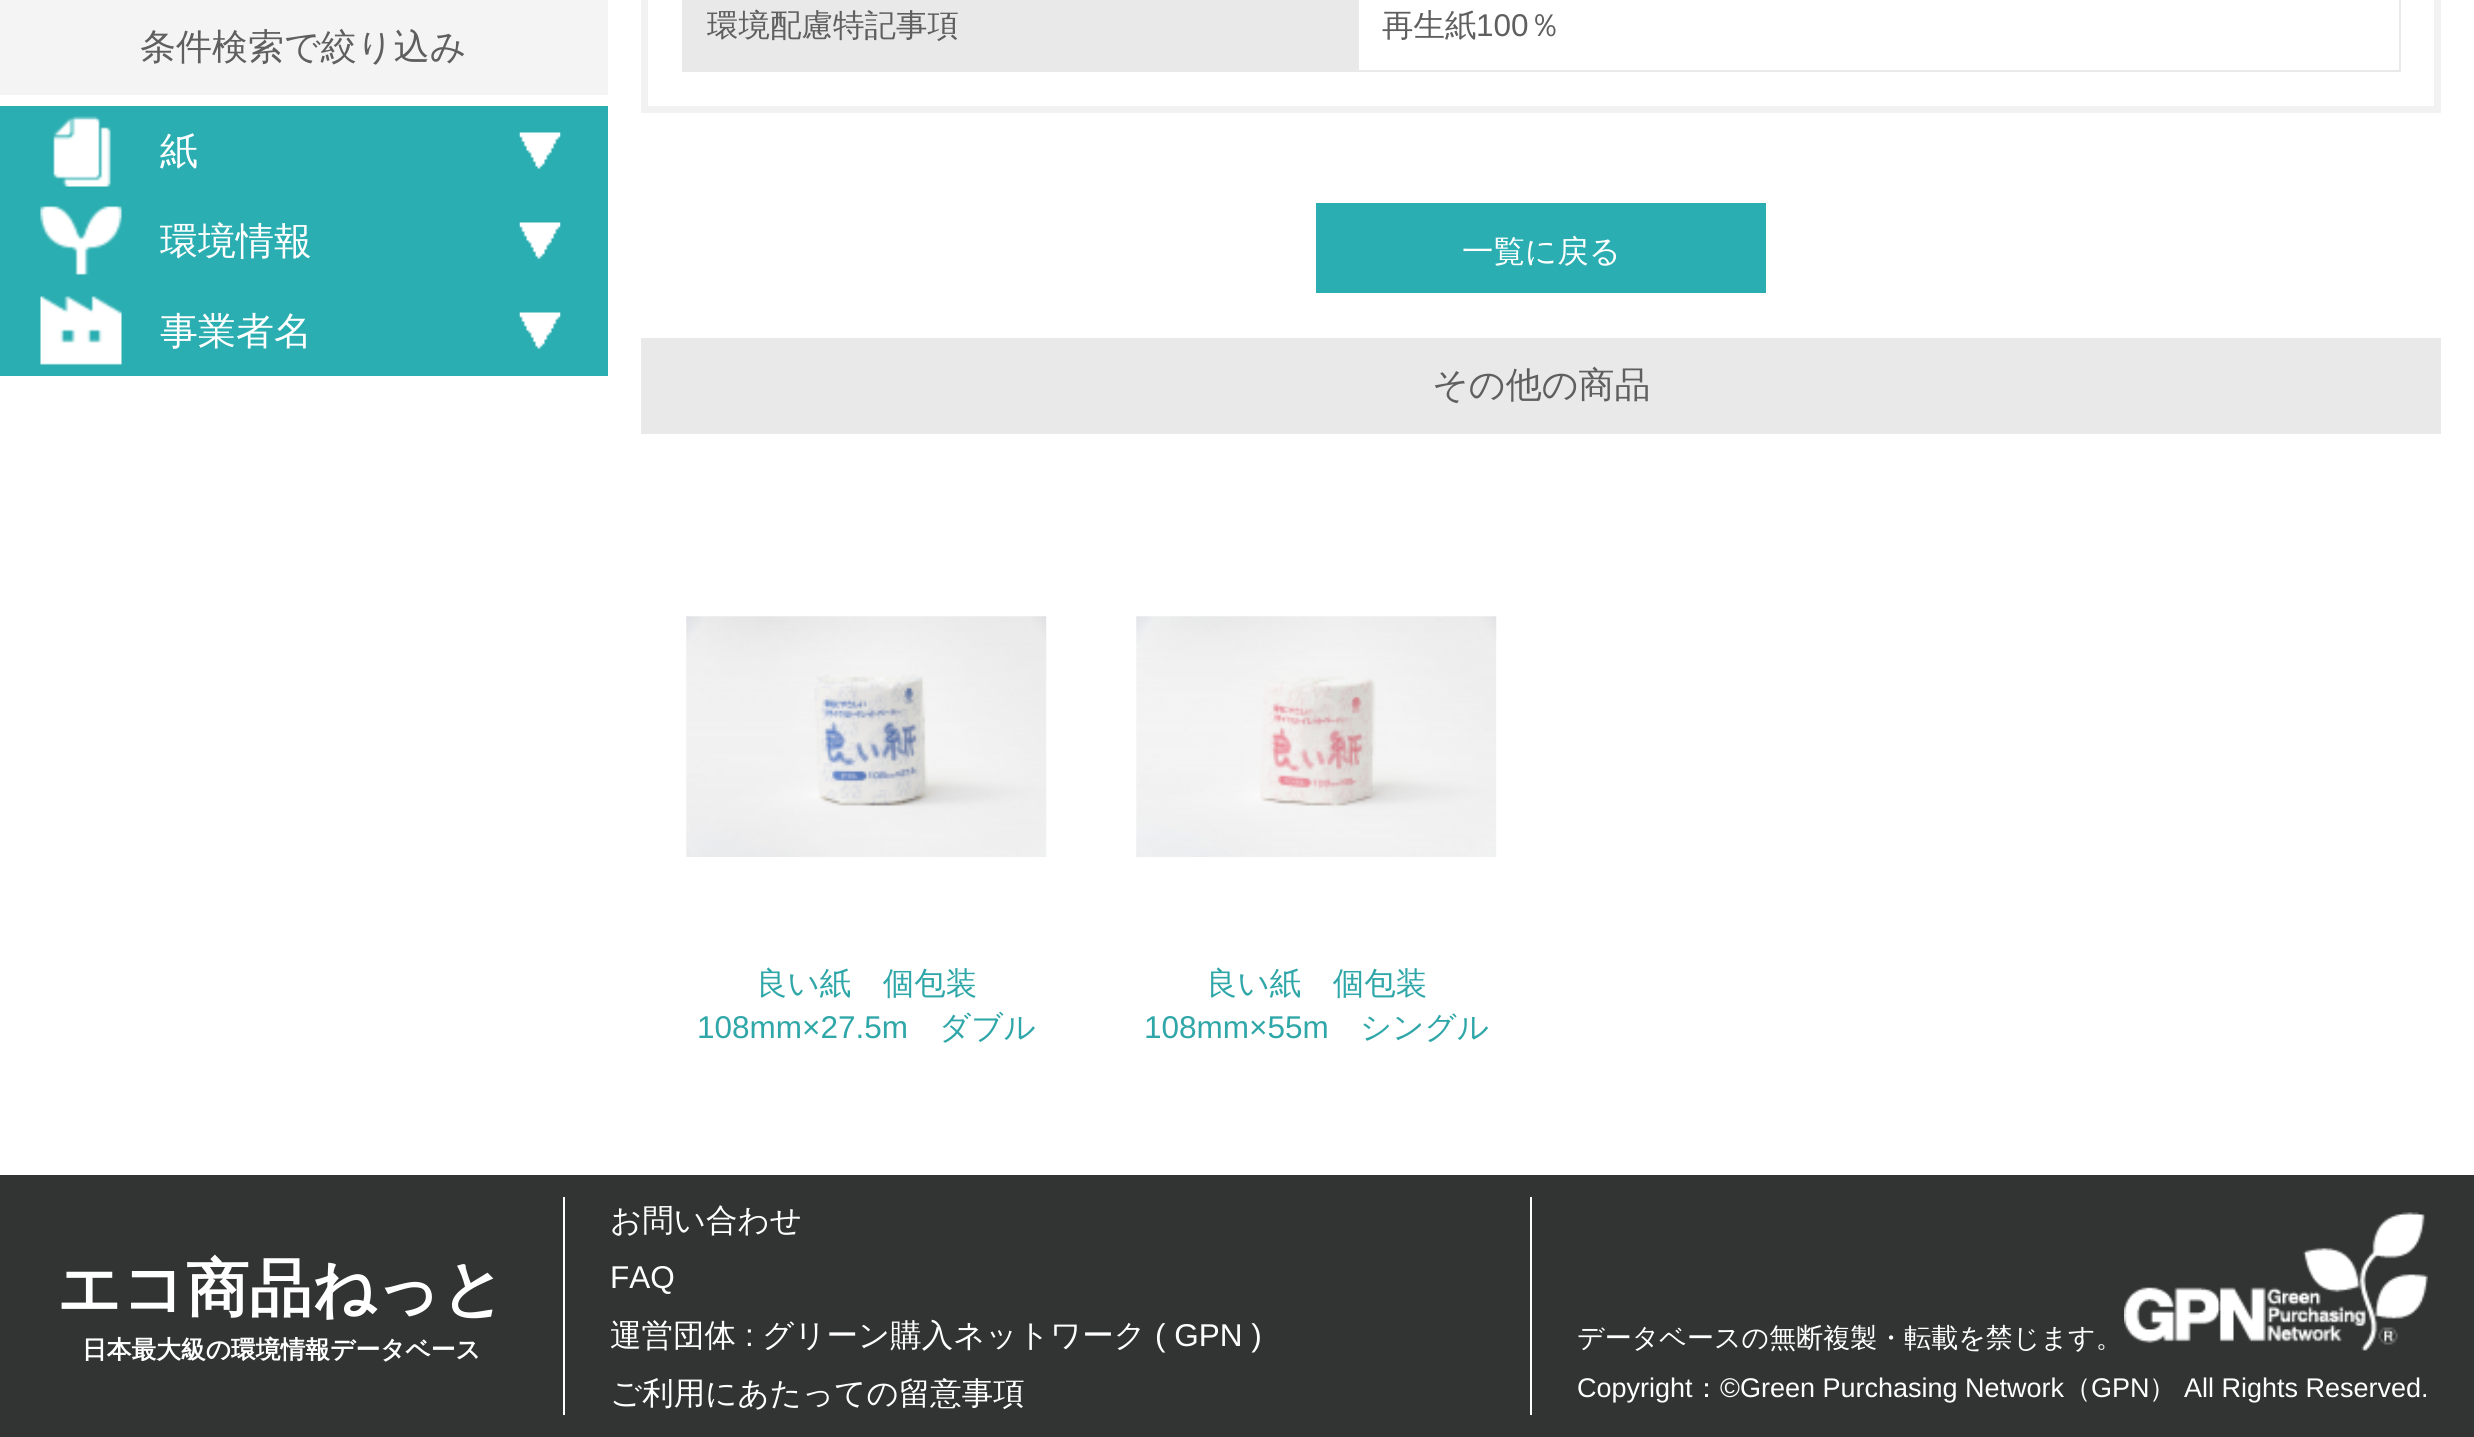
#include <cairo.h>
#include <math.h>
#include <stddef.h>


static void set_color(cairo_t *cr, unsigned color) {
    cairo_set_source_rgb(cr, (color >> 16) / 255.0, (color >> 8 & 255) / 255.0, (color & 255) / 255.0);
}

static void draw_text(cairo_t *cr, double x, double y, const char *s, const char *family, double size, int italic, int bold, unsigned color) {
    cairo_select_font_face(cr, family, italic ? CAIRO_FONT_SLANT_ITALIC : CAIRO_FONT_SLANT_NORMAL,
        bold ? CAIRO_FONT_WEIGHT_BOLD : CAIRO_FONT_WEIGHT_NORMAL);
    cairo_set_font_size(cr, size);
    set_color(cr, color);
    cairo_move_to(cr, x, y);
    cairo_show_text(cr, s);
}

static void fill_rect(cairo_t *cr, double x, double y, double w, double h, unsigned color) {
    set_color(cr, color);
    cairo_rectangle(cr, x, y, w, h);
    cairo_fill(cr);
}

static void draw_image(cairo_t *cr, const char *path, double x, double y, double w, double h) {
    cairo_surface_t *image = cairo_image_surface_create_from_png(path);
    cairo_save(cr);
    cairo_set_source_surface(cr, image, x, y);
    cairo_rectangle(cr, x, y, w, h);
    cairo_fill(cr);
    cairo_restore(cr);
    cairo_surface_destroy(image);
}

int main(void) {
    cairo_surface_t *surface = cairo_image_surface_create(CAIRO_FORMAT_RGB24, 2474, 1437);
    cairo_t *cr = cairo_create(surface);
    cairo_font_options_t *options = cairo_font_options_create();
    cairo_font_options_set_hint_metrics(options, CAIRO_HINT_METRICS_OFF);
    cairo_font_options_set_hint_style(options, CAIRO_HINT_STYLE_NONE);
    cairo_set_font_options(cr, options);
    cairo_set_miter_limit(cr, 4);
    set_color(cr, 0xFFFFFF);
    cairo_paint(cr);
    fill_rect(cr, 0, 0, 608, 95, 0xF4F4F5);
    draw_text(cr, 140, 59, "条件検索で絞り込み", "WenQuanYi Zen Hei Medium", 36, 0, 0, 0x5F5F5F);
    fill_rect(cr, 0, 106, 608, 270, 0x2BAEB1);
    draw_image(cr, "assets/img1.png", 519, 132, 42, 37);
    draw_image(cr, "assets/img2.png", 53, 116, 58, 71);
    draw_text(cr, 160, 164, "紙", "WenQuanYi Zen Hei Medium", 38, 0, 0, 0xFFFFFF);
    draw_image(cr, "assets/img3.png", 519, 222, 42, 37);
    draw_image(cr, "assets/img4.png", 40, 206, 82, 69);
    draw_text(cr, 160, 254, "環境情報", "WenQuanYi Zen Hei Medium", 38, 0, 0, 0xFFFFFF);
    draw_image(cr, "assets/img1.png", 519, 312, 42, 37);
    draw_image(cr, "assets/img5.png", 40, 296, 82, 69);
    draw_text(cr, 160, 344, "事業者名", "WenQuanYi Zen Hei Medium", 38, 0, 0, 0xFFFFFF);
    cairo_rectangle(cr, 644.5, -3.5, 1793, 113);
    set_color(cr, 0xF2F2F2);
    cairo_set_line_width(cr, 7);
    cairo_stroke(cr);
    fill_rect(cr, 682, 0, 1719, 72, 0xE9E9E9);
    draw_text(cr, 707, 36, "環境配慮特記事項", "WenQuanYi Zen Hei Medium", 31.5, 0, 0, 0x5F5F5F);
    fill_rect(cr, 1359, 0, 1040, 70, 0xFFFFFF);
    draw_text(cr, 1382, 36, "再生紙", "WenQuanYi Zen Hei Medium", 31.5, 0, 0, 0x5F5F5F);
    draw_text(cr, 1476, 36, "100", "Liberation Sans", 31.5, 0, 0, 0x5F5F5F);
    draw_text(cr, 1529, 36, "％", "WenQuanYi Zen Hei Medium", 31.5, 0, 0, 0x5F5F5F);
    fill_rect(cr, 1316, 203, 450, 90, 0x2BAEB1);
    draw_text(cr, 1462, 262, "一覧に戻る", "WenQuanYi Zen Hei Medium", 31.5, 0, 0, 0xFFFFFF);
    fill_rect(cr, 641, 338, 1800, 96, 0xE9E9E9);
    draw_text(cr, 1432, 397, "その他の商品", "WenQuanYi Zen Hei Medium", 36, 0, 0, 0x5F5F5F);
    draw_image(cr, "assets/img6.png", 686, 616, 361, 241);
    draw_text(cr, 756, 994, "良い紙　個包装", "WenQuanYi Zen Hei Medium", 31.5, 0, 0, 0x2FA6A8);
    draw_text(cr, 697, 1038, "108mm×27.5m", "Liberation Sans", 31.5, 0, 0, 0x2FA6A8);
    draw_text(cr, 939, 1038, "ダブル", "WenQuanYi Zen Hei Medium", 31.5, 0, 0, 0x2FA6A8);
    draw_image(cr, "assets/img7.png", 1136, 616, 361, 241);
    draw_text(cr, 1206, 994, "良い紙　個包装", "WenQuanYi Zen Hei Medium", 31.5, 0, 0, 0x2FA6A8);
    draw_text(cr, 1144, 1038, "108mm×55m", "Liberation Sans", 31.5, 0, 0, 0x2FA6A8);
    draw_text(cr, 1360, 1038, "シングル", "WenQuanYi Zen Hei Medium", 31.5, 0, 0, 0x2FA6A8);
    fill_rect(cr, 0, 1175, 2474, 262, 0x323333);
    draw_text(cr, 57, 1310, "エコ商品ねっと", "WenQuanYi Zen Hei", 63, 0, 1, 0xFFFFFF);
    draw_text(cr, 82, 1358, "日本最大級の環境情報データベース", "WenQuanYi Zen Hei", 24.75, 0, 1, 0xFFFFFF);
    fill_rect(cr, 563, 1197, 2, 218, 0xFFFFFF);
    draw_text(cr, 610, 1231, "お問い合わせ", "WenQuanYi Zen Hei Medium", 31.5, 0, 0, 0xFFFFFF);
    draw_text(cr, 610, 1288, "FAQ", "Liberation Sans", 31.5, 0, 0, 0xFFFFFF);
    draw_text(cr, 610, 1346, "運営団体", "WenQuanYi Zen Hei Medium", 31.5, 0, 0, 0xFFFFFF);
    draw_text(cr, 745, 1346, ":", "Liberation Sans", 31.5, 0, 0, 0xFFFFFF);
    draw_text(cr, 762, 1346, "グリーン購入ネットワーク", "WenQuanYi Zen Hei Medium", 31.5, 0, 0, 0xFFFFFF);
    draw_text(cr, 1155, 1346, "( GPN )", "Liberation Sans", 31.5, 0, 0, 0xFFFFFF);
    draw_text(cr, 610, 1404, "ご利用にあたっての留意事項", "WenQuanYi Zen Hei Medium", 31.5, 0, 0, 0xFFFFFF);
    fill_rect(cr, 1530, 1197, 2, 218, 0xFFFFFF);
    draw_text(cr, 1577, 1347, "データベースの無断複製・転載を禁じます。", "WenQuanYi Zen Hei Medium", 27, 0, 0, 0xFFFFFF);
    draw_image(cr, "assets/img8.png", 2124, 1212, 304, 139);
    draw_text(cr, 1577, 1397, "Copyright", "Liberation Sans", 27, 0, 0, 0xFFFFFF);
    draw_text(cr, 1693, 1397, "：", "WenQuanYi Zen Hei Medium", 27, 0, 0, 0xFFFFFF);
    draw_text(cr, 1720, 1397, "©Green Purchasing Network", "Liberation Sans", 27, 0, 0, 0xFFFFFF);
    draw_text(cr, 2064, 1397, "（", "WenQuanYi Zen Hei Medium", 27, 0, 0, 0xFFFFFF);
    draw_text(cr, 2091, 1397, "GPN", "Liberation Sans", 27, 0, 0, 0xFFFFFF);
    draw_text(cr, 2149, 1397, "）", "WenQuanYi Zen Hei Medium", 27, 0, 0, 0xFFFFFF);
    draw_text(cr, 2184, 1397, "All Rights Reserved.", "Liberation Sans", 27, 0, 0, 0xFFFFFF);
    cairo_surface_write_to_png(surface, "output.png");
    cairo_font_options_destroy(options);
    cairo_destroy(cr);
    cairo_surface_destroy(surface);
    return 0;
}
